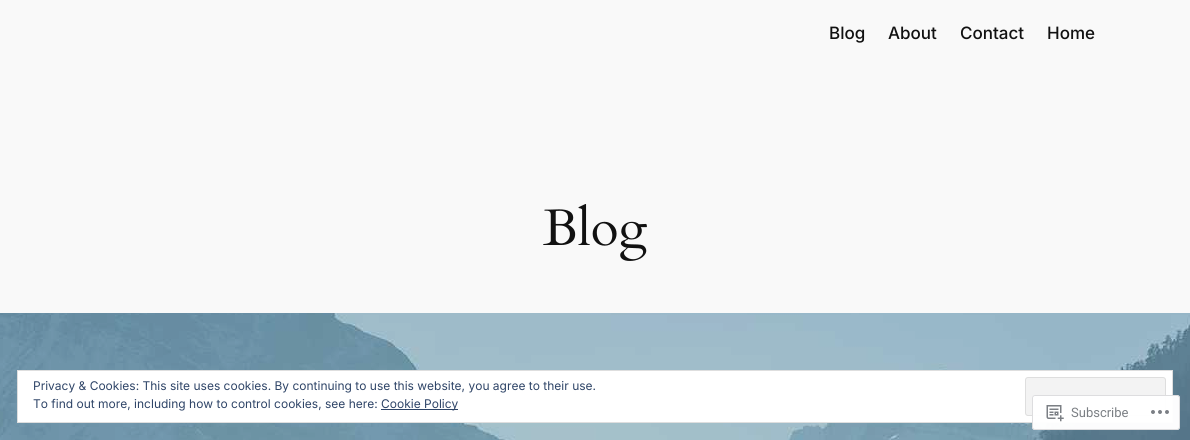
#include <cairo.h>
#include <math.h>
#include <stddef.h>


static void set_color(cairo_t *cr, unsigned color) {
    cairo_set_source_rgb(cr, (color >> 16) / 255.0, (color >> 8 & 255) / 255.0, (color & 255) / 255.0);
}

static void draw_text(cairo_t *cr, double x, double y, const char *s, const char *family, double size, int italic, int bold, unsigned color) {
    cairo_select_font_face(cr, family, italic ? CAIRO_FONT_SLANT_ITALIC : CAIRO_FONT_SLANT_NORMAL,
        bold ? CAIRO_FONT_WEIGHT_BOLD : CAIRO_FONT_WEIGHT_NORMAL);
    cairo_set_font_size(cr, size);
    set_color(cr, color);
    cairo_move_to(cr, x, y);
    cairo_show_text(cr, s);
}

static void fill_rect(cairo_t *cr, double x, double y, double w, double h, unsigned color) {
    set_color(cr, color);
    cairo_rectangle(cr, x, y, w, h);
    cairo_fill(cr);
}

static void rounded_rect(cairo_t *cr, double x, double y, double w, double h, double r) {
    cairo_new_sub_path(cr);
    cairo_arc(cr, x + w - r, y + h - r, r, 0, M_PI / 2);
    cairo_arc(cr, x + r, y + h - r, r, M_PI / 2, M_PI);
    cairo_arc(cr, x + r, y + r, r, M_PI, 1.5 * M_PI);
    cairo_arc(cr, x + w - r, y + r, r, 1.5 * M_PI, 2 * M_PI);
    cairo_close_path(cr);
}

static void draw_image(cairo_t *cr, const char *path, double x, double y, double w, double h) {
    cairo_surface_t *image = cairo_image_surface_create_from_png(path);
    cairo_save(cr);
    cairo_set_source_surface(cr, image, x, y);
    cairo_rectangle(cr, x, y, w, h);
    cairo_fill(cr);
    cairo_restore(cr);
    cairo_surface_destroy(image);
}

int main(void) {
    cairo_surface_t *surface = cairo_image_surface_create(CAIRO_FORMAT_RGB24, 1190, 440);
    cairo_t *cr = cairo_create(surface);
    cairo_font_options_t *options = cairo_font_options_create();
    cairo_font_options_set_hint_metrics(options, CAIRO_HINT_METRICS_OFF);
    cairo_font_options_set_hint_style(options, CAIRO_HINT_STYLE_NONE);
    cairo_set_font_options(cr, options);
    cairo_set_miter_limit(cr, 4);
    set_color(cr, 0xF9F9F9);
    cairo_paint(cr);
    draw_text(cr, 829, 39, "Blog", "Inter Medium", 17, 0, 0, 0x111111);
    draw_text(cr, 888, 39, "About", "Inter Medium", 17, 0, 0, 0x111111);
    draw_text(cr, 960, 39, "Contact", "Inter Medium", 17, 0, 0, 0x111111);
    draw_text(cr, 1047, 39, "Home", "Inter Medium", 17, 0, 0, 0x111111);
    draw_image(cr, "assets/img1.png", 543, 204, 104, 57);
    draw_image(cr, "assets/img2.png", 0, 313, 1190, 127);
    set_color(cr, 0xFFFFFF);
    cairo_rectangle(cr, 17.5, 370.5, 1155, 52);
    cairo_fill_preserve(cr);
    set_color(cr, 0xDEDEDE);
    cairo_set_line_width(cr, 1);
    cairo_stroke(cr);
    draw_text(cr, 33, 390, "Privacy & Cookies: This site uses cookies. By continuing to use this website, you agree to their use.", "Inter", 12, 0, 0, 0x2E4467);
    set_color(cr, 0xF3F3F3);
    rounded_rect(cr, 1025.5, 377.5, 140, 38, 2.5);
    cairo_fill_preserve(cr);
    set_color(cr, 0xDEDEDE);
    cairo_stroke(cr);
    draw_text(cr, 33, 408, "To find out more, including how to control cookies, see here:", "Inter", 12, 0, 0, 0x2E4467);
    fill_rect(cr, 381, 409, 77, 1, 0x2E4467);
    draw_text(cr, 381, 408, "Cookie Policy", "Inter", 12, 0, 0, 0x2E4467);
    cairo_set_source_rgba(cr, 1, 1, 1, 0.98);
    rounded_rect(cr, 1032, 395, 148, 35, 3);
    cairo_fill(cr);
    rounded_rect(cr, 1032.5, 395.5, 147, 34, 2.5);
    cairo_set_source_rgba(cr, 0.863, 0.863, 0.871, 0.98);
    cairo_stroke(cr);
    draw_image(cr, "assets/img3.png", 1046, 405, 18, 17);
    draw_text(cr, 1071, 417, "Subscribe", "Roboto", 13, 0, 0, 0x7B7F84);
    draw_image(cr, "assets/img4.png", 1151, 410, 18, 4);
    cairo_surface_write_to_png(surface, "output.png");
    cairo_font_options_destroy(options);
    cairo_destroy(cr);
    cairo_surface_destroy(surface);
    return 0;
}
